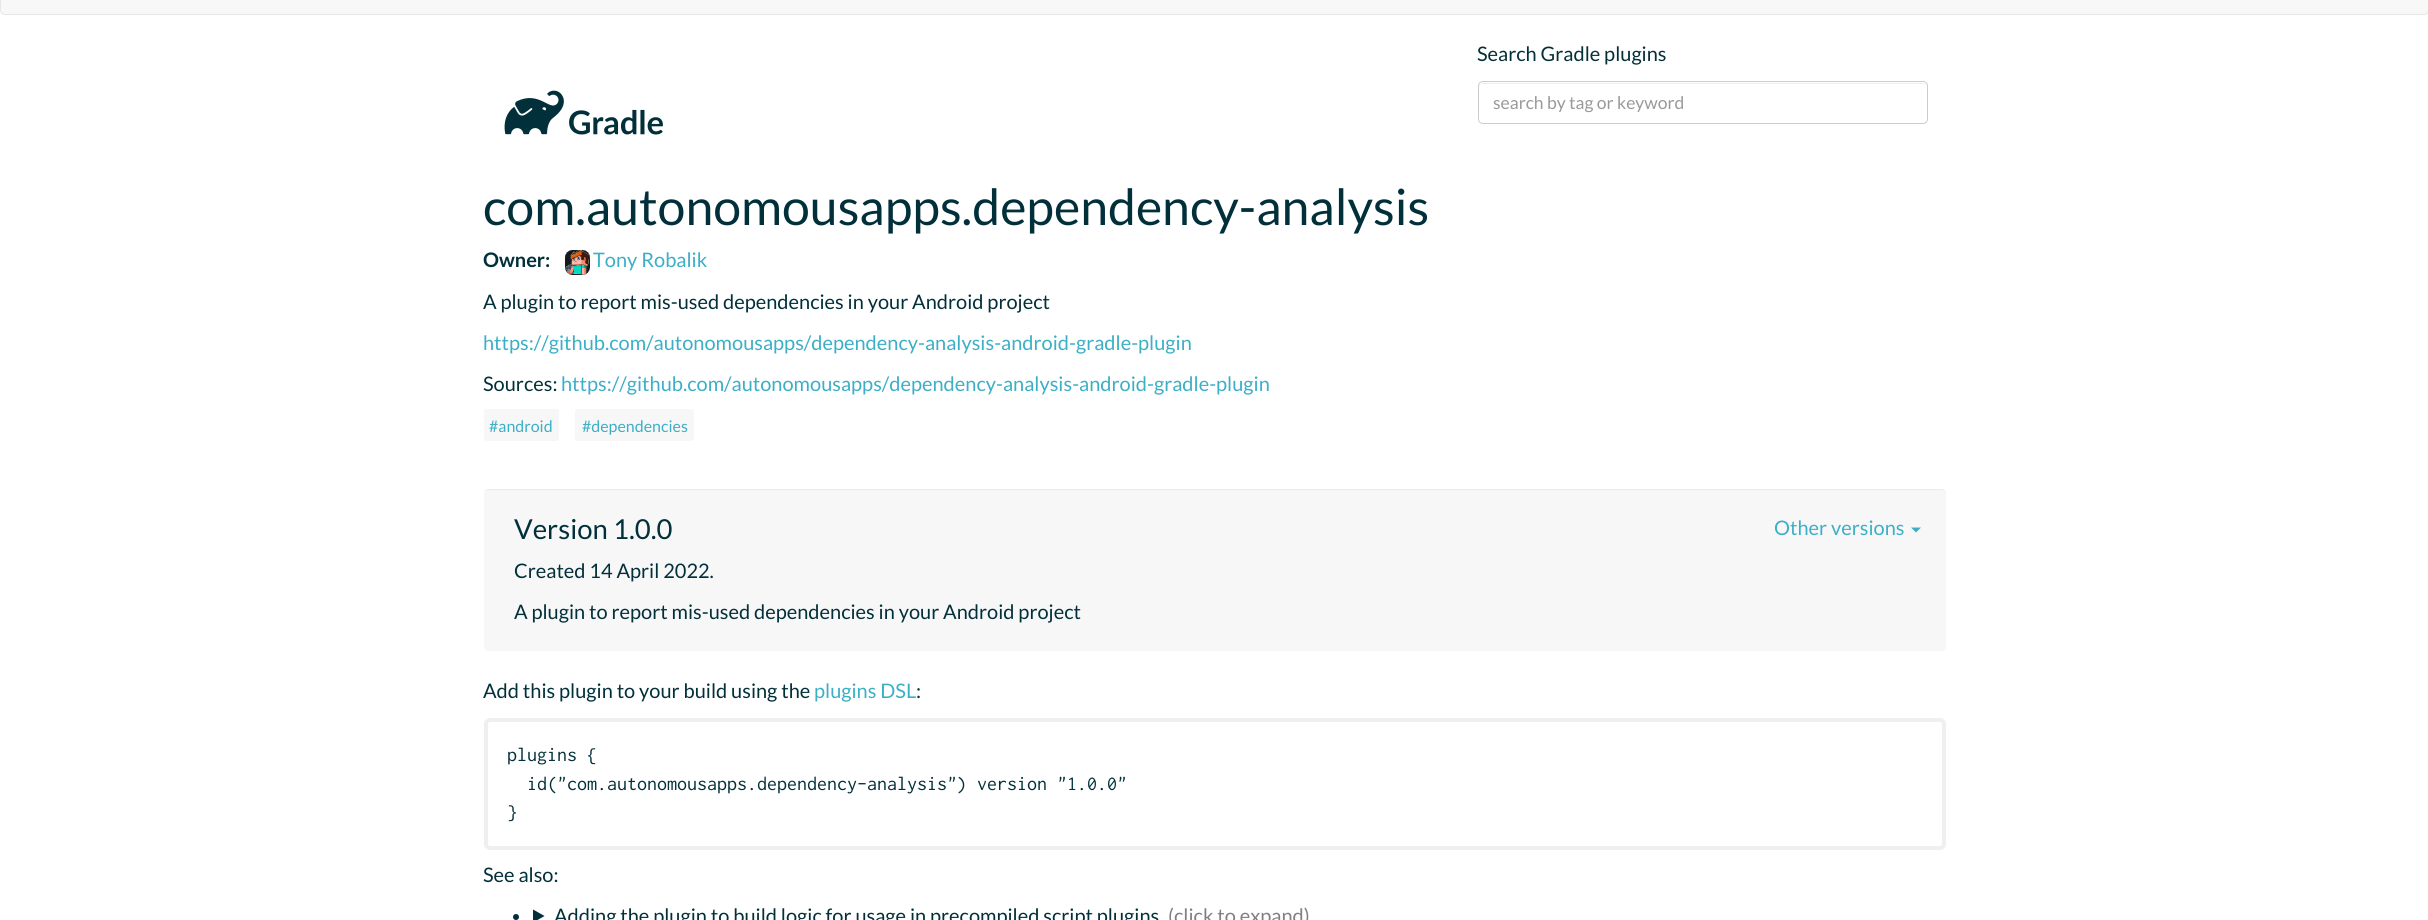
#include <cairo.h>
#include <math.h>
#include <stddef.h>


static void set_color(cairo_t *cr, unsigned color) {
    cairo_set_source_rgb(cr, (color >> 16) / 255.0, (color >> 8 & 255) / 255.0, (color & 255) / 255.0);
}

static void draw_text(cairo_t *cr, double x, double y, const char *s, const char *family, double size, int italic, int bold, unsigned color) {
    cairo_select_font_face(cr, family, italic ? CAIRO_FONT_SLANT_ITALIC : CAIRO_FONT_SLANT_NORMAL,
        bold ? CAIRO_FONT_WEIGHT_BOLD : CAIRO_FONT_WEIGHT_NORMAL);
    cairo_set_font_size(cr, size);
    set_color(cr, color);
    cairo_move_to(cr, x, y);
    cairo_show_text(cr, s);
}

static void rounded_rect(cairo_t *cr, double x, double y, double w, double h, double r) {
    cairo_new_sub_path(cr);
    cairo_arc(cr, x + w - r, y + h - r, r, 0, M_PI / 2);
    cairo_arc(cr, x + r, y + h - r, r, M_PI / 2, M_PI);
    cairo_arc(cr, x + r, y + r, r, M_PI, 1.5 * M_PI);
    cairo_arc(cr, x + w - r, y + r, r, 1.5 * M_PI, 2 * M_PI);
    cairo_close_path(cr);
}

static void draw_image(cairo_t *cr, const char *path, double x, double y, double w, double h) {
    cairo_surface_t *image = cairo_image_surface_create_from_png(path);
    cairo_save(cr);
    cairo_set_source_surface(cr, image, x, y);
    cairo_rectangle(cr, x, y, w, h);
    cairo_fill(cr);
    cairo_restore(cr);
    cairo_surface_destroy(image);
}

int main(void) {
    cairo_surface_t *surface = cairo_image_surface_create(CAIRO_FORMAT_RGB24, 2428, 920);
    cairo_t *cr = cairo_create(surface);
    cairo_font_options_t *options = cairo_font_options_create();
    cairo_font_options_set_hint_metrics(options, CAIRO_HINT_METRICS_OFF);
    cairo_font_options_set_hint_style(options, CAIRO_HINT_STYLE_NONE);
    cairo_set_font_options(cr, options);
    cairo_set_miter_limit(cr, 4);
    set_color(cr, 0xFFFFFF);
    cairo_paint(cr);
    set_color(cr, 0xF8F8F8);
    rounded_rect(cr, 0.5, -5.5, 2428, 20, 4.5);
    cairo_fill_preserve(cr);
    set_color(cr, 0xE7E7E7);
    cairo_set_line_width(cr, 1);
    cairo_stroke(cr);
    draw_image(cr, "assets/img1.png", 504, 90, 159, 45);
    draw_text(cr, 1477, 61, "Search Gradle plugins", "Lato", 20, 0, 0, 0x02303A);
    set_color(cr, 0xECECEC);
    cairo_new_path(cr);
    cairo_move_to(cr, 1482, 84);
    cairo_line_to(cr, 1922, 84);
    cairo_curve_to(cr, 1925, 84, 1926, 85, 1926, 88);
    cairo_curve_to(cr, 1926, 85, 1925, 83, 1922, 83);
    cairo_line_to(cr, 1483, 83);
    cairo_line_to(cr, 1481, 84);
    cairo_line_to(cr, 1480, 85);
    cairo_line_to(cr, 1479, 88);
    cairo_curve_to(cr, 1479, 85, 1480, 84, 1482, 84);
    cairo_close_path(cr);
    cairo_fill(cr);
    rounded_rect(cr, 1478.5, 81.5, 449, 42, 4.5);
    set_color(cr, 0xCCCCCC);
    cairo_stroke(cr);
    draw_text(cr, 1493, 109, "search by tag or keyword", "Lato", 17.5, 0, 0, 0x999999);
    draw_text(cr, 483, 225, "com.autonomousapps.dependency-analysis", "Lato", 50, 0, 0, 0x02303A);
    draw_text(cr, 483, 267, "Owner:", "Lato", 20, 0, 1, 0x02303A);
    draw_image(cr, "assets/img2.png", 565, 250, 25, 25);
    draw_text(cr, 593, 267, "Tony Robalik", "Lato", 20, 0, 0, 0x3CAFC6);
    draw_text(cr, 483, 309, "A plugin to report mis-used dependencies in your Android project", "Lato", 20, 0, 0, 0x02303A);
    draw_text(cr, 483, 350, "https://github.com/autonomousapps/dependency-analysis-android-gradle-plugin", "Lato", 20, 0, 0, 0x3CAFC6);
    draw_text(cr, 483, 391, "Sources:", "Lato", 20, 0, 0, 0x02303A);
    draw_text(cr, 561, 391, "https://github.com/autonomousapps/dependency-analysis-android-gradle-plugin", "Lato", 20, 0, 0, 0x3CAFC6);
    set_color(cr, 0xF7F7F8);
    rounded_rect(cr, 484, 409, 75, 32, 2.5);
    cairo_fill(cr);
    draw_text(cr, 489, 432, "#android", "Lato", 16, 0, 0, 0x3CAFC6);
    set_color(cr, 0xF7F7F8);
    rounded_rect(cr, 575, 409, 119, 32, 2.5);
    cairo_fill(cr);
    draw_text(cr, 582, 432, "#dependencies", "Lato", 16, 0, 0, 0x3CAFC6);
    set_color(cr, 0xF7F7F8);
    rounded_rect(cr, 484, 489, 1462, 162, 4);
    cairo_fill(cr);
    cairo_set_source_rgba(cr, 0, 0, 0, 0.05);
    cairo_new_path(cr);
    cairo_move_to(cr, 488, 490);
    cairo_line_to(cr, 1942, 490);
    cairo_curve_to(cr, 1945, 490, 1946, 492, 1946, 494);
    cairo_line_to(cr, 1946, 493);
    cairo_curve_to(cr, 1946, 491, 1944, 489, 1942, 489);
    cairo_line_to(cr, 488, 489);
    cairo_curve_to(cr, 486, 489, 484, 491, 484, 493);
    cairo_line_to(cr, 484, 494);
    cairo_curve_to(cr, 484, 492, 485, 490, 488, 490);
    cairo_close_path(cr);
    cairo_fill(cr);
    draw_text(cr, 514, 539, "Version 1.0.0", "Lato", 27.5, 0, 0, 0x02303A);
    draw_text(cr, 1774, 535, "Other versions", "Lato", 20, 0, 0, 0x3CAFC6);
    cairo_new_path(cr);
    cairo_move_to(cr, 1911, 527.5);
    cairo_line_to(cr, 1921, 527.5);
    cairo_line_to(cr, 1916, 532.5);
    cairo_close_path(cr);
    cairo_fill(cr);
    draw_text(cr, 514, 578, "Created 14 April 2022.", "Lato", 20, 0, 0, 0x02303A);
    draw_text(cr, 514, 619, "A plugin to report mis-used dependencies in your Android project", "Lato", 20, 0, 0, 0x02303A);
    draw_text(cr, 483, 698, "Add this plugin to your build using the", "Lato", 20, 0, 0, 0x02303A);
    draw_text(cr, 814, 698, "plugins DSL", "Lato", 20, 0, 0, 0x3CAFC6);
    draw_text(cr, 916, 698, ":", "Lato", 20, 0, 0, 0x02303A);
    rounded_rect(cr, 486, 720, 1458, 128, 4);
    set_color(cr, 0xEFEFEF);
    cairo_set_line_width(cr, 4);
    cairo_stroke(cr);
    draw_text(cr, 507, 761, "plugins {", "Inconsolata Medium", 20, 0, 0, 0x02303A);
    draw_text(cr, 527, 790, "id(\"com.autonomousapps.dependency-analysis\") version \"1.0.0\"", "Inconsolata Medium", 20, 0, 0, 0x02303A);
    draw_text(cr, 507, 818, "}", "Inconsolata Medium", 20, 0, 0, 0x02303A);
    draw_text(cr, 483, 882, "See also:", "Lato", 20, 0, 0, 0x02303A);
    cairo_new_path(cr);
    cairo_arc(cr, 516, 917, 3, 0, 2 * M_PI);
    cairo_fill(cr);
    cairo_new_path(cr);
    cairo_move_to(cr, 533, 909.5);
    cairo_line_to(cr, 544.5, 916);
    cairo_line_to(cr, 533, 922.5);
    cairo_close_path(cr);
    cairo_fill(cr);
    draw_text(cr, 554, 923, "Adding the plugin to build logic for usage in precompiled script plugins", "Lato", 20, 0, 0, 0x02303A);
    draw_text(cr, 1168, 923, "(click to expand)", "Lato", 20, 0, 0, 0x808080);
    cairo_surface_write_to_png(surface, "output.png");
    cairo_font_options_destroy(options);
    cairo_destroy(cr);
    cairo_surface_destroy(surface);
    return 0;
}
